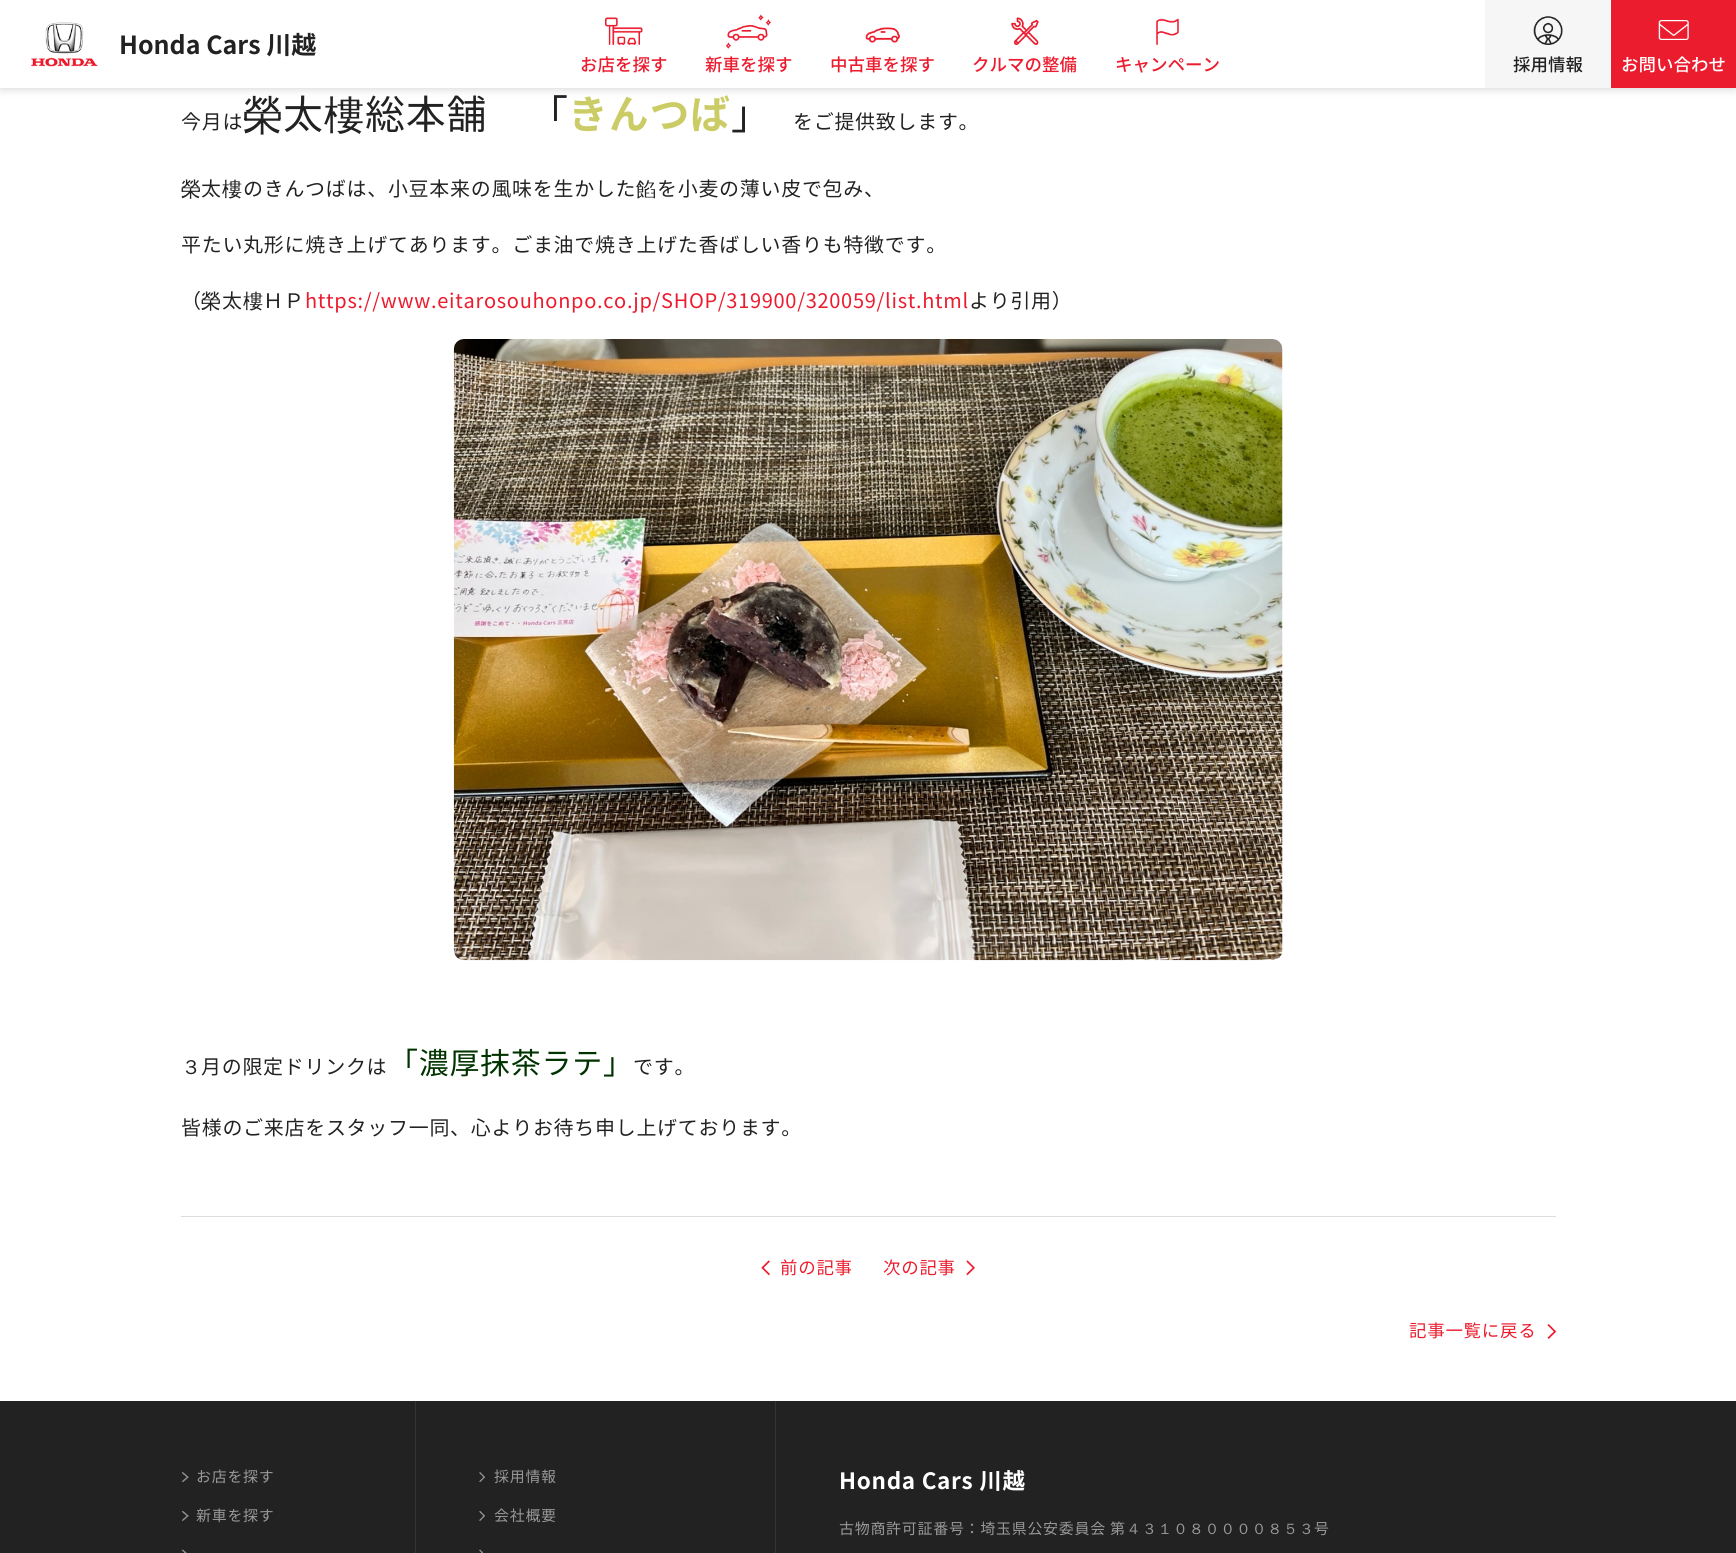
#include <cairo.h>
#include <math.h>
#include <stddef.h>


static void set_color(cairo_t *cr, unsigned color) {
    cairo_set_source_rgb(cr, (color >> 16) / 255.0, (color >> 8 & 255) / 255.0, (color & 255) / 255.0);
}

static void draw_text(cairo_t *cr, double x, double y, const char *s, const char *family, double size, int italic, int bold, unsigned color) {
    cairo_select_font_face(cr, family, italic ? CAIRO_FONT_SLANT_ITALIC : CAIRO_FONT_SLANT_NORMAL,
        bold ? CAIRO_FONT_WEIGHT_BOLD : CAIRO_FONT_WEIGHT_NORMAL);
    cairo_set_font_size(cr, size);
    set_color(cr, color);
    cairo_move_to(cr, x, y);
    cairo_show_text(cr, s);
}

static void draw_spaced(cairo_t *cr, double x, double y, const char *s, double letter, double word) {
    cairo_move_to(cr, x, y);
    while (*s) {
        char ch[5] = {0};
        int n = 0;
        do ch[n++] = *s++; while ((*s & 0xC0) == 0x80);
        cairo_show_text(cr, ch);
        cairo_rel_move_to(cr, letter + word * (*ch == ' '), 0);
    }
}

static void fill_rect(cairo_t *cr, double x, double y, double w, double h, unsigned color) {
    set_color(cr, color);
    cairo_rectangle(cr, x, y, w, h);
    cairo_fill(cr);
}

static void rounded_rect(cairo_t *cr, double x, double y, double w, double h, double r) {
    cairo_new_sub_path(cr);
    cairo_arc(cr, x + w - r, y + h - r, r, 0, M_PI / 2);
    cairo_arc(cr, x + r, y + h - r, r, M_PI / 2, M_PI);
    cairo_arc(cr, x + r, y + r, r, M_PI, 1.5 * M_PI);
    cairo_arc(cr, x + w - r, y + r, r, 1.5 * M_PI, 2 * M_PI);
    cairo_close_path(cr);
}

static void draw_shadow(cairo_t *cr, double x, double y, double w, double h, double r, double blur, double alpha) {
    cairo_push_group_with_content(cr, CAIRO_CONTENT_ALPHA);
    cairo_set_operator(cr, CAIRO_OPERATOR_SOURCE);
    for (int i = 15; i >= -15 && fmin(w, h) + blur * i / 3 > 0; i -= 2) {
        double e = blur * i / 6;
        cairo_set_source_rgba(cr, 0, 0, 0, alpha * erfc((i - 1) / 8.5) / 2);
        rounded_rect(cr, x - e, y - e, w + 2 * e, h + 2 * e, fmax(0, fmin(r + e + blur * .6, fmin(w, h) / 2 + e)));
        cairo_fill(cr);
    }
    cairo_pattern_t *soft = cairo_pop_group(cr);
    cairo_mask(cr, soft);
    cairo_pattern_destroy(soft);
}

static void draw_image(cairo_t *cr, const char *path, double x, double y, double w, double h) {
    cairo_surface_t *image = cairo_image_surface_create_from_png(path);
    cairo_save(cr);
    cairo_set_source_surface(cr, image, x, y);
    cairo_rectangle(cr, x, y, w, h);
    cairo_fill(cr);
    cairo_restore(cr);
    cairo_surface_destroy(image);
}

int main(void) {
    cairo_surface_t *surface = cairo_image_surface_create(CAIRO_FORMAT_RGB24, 1736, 1553);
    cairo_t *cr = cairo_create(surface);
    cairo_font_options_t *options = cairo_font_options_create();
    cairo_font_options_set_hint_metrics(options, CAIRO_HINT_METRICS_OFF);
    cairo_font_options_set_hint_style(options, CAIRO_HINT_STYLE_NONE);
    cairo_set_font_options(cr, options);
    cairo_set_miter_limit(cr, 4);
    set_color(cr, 0xFFFFFF);
    cairo_paint(cr);
    set_color(cr, 0x000000);
    draw_shadow(cr, 0, 0, 1736, 88, 0, 5, 0.2);
    fill_rect(cr, 0, 0, 1611, 88, 0xFFFFFF);
    draw_image(cr, "assets/img1.png", 31, 22, 67, 45);
    draw_text(cr, 119, 54, "Honda Cars 川越", "Noto Sans CJK JP", 25, 0, 1, 0x222222);
    draw_image(cr, "assets/img2.png", 605, 17, 38, 28);
    draw_text(cr, 580, 71, "お店を探す", "Noto Sans CJK JP Medium", 17.5, 0, 0, 0xEC1C2F);
    draw_image(cr, "assets/img3.png", 725, 14, 47, 35);
    draw_text(cr, 705, 71, "新車を探す", "Noto Sans CJK JP Medium", 17.5, 0, 0, 0xEC1C2F);
    draw_image(cr, "assets/img4.png", 865, 27, 35, 16);
    draw_text(cr, 830, 71, "中古車を探す", "Noto Sans CJK JP Medium", 17.5, 0, 0, 0xEC1C2F);
    draw_image(cr, "assets/img5.png", 1011, 17, 28, 28);
    draw_text(cr, 972, 71, "クルマの整備", "Noto Sans CJK JP Medium", 17.5, 0, 0, 0xEC1C2F);
    draw_image(cr, "assets/img6.png", 1156, 18, 23, 27);
    draw_text(cr, 1115, 71, "キャンペーン", "Noto Sans CJK JP Medium", 17.5, 0, 0, 0xEC1C2F);
    fill_rect(cr, 1485, 0, 125, 88, 0xF6F6F6);
    draw_image(cr, "assets/img7.png", 1533, 16, 30, 29);
    draw_text(cr, 1513, 71, "採用情報", "Noto Sans CJK JP Medium", 17.5, 0, 0, 0x222222);
    fill_rect(cr, 1611, 0, 125, 88, 0xEC1C2F);
    draw_image(cr, "assets/img8.png", 1658, 20, 31, 20);
    draw_text(cr, 1621, 71, "お問い合わせ", "Noto Sans CJK JP Medium", 17.5, 0, 0, 0xFFFFFF);
    fill_rect(cr, 181, 1216, 1375, 1, 0xDDDDDD);
    cairo_select_font_face(cr, "Noto Sans CJK JP", CAIRO_FONT_SLANT_NORMAL, CAIRO_FONT_WEIGHT_NORMAL);
    cairo_set_font_size(cr, 20);
    set_color(cr, 0x222222);
    draw_spaced(cr, 181, 129, "今月は", 0.7, 0);
    cairo_select_font_face(cr, "WenQuanYi Zen Hei Medium", CAIRO_FONT_SLANT_NORMAL, CAIRO_FONT_WEIGHT_NORMAL);
    cairo_set_font_size(cr, 40);
    draw_spaced(cr, 243, 129, "榮", 0.7, 0);
    cairo_select_font_face(cr, "Noto Sans CJK JP", CAIRO_FONT_SLANT_NORMAL, CAIRO_FONT_WEIGHT_NORMAL);
    draw_spaced(cr, 283, 129, "太", 0.7, 0);
    cairo_select_font_face(cr, "WenQuanYi Zen Hei Medium", CAIRO_FONT_SLANT_NORMAL, CAIRO_FONT_WEIGHT_NORMAL);
    draw_spaced(cr, 324, 129, "樓", 0.7, 0);
    cairo_select_font_face(cr, "Noto Sans CJK JP", CAIRO_FONT_SLANT_NORMAL, CAIRO_FONT_WEIGHT_NORMAL);
    draw_spaced(cr, 365, 129, "総本舗", 0.7, 0);
    draw_spaced(cr, 528, 129, "「", 0.7, 0);
    cairo_select_font_face(cr, "Noto Sans CJK JP", CAIRO_FONT_SLANT_NORMAL, CAIRO_FONT_WEIGHT_BOLD);
    set_color(cr, 0xCCCC66);
    draw_spaced(cr, 568, 129, "きんつば", 0.7, 0);
    cairo_select_font_face(cr, "Noto Sans CJK JP", CAIRO_FONT_SLANT_NORMAL, CAIRO_FONT_WEIGHT_NORMAL);
    set_color(cr, 0x222222);
    draw_spaced(cr, 731, 129, "」", 0.7, 0);
    cairo_set_font_size(cr, 20);
    draw_spaced(cr, 793, 129, "をご提供致します。", 0.7, 0);
    cairo_select_font_face(cr, "WenQuanYi Zen Hei Medium", CAIRO_FONT_SLANT_NORMAL, CAIRO_FONT_WEIGHT_NORMAL);
    draw_spaced(cr, 181, 196, "榮", 0.7, 0);
    cairo_select_font_face(cr, "Noto Sans CJK JP", CAIRO_FONT_SLANT_NORMAL, CAIRO_FONT_WEIGHT_NORMAL);
    draw_spaced(cr, 201, 196, "太", 0.7, 0);
    cairo_select_font_face(cr, "WenQuanYi Zen Hei Medium", CAIRO_FONT_SLANT_NORMAL, CAIRO_FONT_WEIGHT_NORMAL);
    draw_spaced(cr, 222, 196, "樓", 0.7, 0);
    cairo_select_font_face(cr, "Noto Sans CJK JP", CAIRO_FONT_SLANT_NORMAL, CAIRO_FONT_WEIGHT_NORMAL);
    draw_spaced(cr, 243, 196, "のきんつばは、小豆本来の風味を生かした", 0.7, 0);
    cairo_select_font_face(cr, "WenQuanYi Zen Hei Medium", CAIRO_FONT_SLANT_NORMAL, CAIRO_FONT_WEIGHT_NORMAL);
    draw_spaced(cr, 636, 196, "餡", 0.7, 0);
    cairo_select_font_face(cr, "Noto Sans CJK JP", CAIRO_FONT_SLANT_NORMAL, CAIRO_FONT_WEIGHT_NORMAL);
    draw_spaced(cr, 657, 196, "を小麦の薄い皮で包み、", 0.7, 0);
    draw_spaced(cr, 181, 252, "平たい丸形に焼き上げてあります。ごま油で焼き上げた香ばしい香りも特徴です。", 0.7, 0);
    draw_spaced(cr, 181, 308, "（", 0.7, 0);
    cairo_select_font_face(cr, "WenQuanYi Zen Hei Medium", CAIRO_FONT_SLANT_NORMAL, CAIRO_FONT_WEIGHT_NORMAL);
    draw_spaced(cr, 201, 308, "榮", 0.7, 0);
    cairo_select_font_face(cr, "Noto Sans CJK JP", CAIRO_FONT_SLANT_NORMAL, CAIRO_FONT_WEIGHT_NORMAL);
    draw_spaced(cr, 222, 308, "太", 0.7, 0);
    cairo_select_font_face(cr, "WenQuanYi Zen Hei Medium", CAIRO_FONT_SLANT_NORMAL, CAIRO_FONT_WEIGHT_NORMAL);
    draw_spaced(cr, 243, 308, "樓", 0.7, 0);
    cairo_select_font_face(cr, "Noto Sans CJK JP", CAIRO_FONT_SLANT_NORMAL, CAIRO_FONT_WEIGHT_NORMAL);
    draw_spaced(cr, 263, 308, "ＨＰ", 0.7, 0);
    set_color(cr, 0xEC1C2F);
    draw_spaced(cr, 305, 308, "https://www.eitarosouhonpo.co.jp/SHOP/319900/320059/list.html", 0.7, 0);
    set_color(cr, 0x222222);
    draw_spaced(cr, 969, 308, "より引用）", 0.7, 0);
    draw_image(cr, "assets/img9.png", 453, 339, 830, 622);
    cairo_select_font_face(cr, "WenQuanYi Zen Hei Medium", CAIRO_FONT_SLANT_NORMAL, CAIRO_FONT_WEIGHT_NORMAL);
    draw_spaced(cr, 181, 1074, "３", 0.7, 0);
    cairo_select_font_face(cr, "Noto Sans CJK JP", CAIRO_FONT_SLANT_NORMAL, CAIRO_FONT_WEIGHT_NORMAL);
    draw_spaced(cr, 201, 1074, "月の限定ドリンクは", 0.7, 0);
    cairo_set_font_size(cr, 30);
    set_color(cr, 0x003300);
    draw_spaced(cr, 388, 1074, "「濃厚抹茶ラテ」", 0.7, 0);
    cairo_set_font_size(cr, 20);
    set_color(cr, 0x222222);
    draw_spaced(cr, 633, 1074, "です。", 0.7, 0);
    draw_spaced(cr, 181, 1135, "皆様のご来店をスタッフ一同、心よりお待ち申し上げております。", 0.7, 0);
    draw_image(cr, "assets/img10.png", 761, 1260, 9, 16);
    cairo_set_font_size(cr, 17.5);
    set_color(cr, 0xEC1C2F);
    draw_spaced(cr, 780, 1274, "前の記事", 0.7, 0);
    draw_image(cr, "assets/img11.png", 966, 1260, 9, 16);
    draw_spaced(cr, 883, 1274, "次の記事", 0.7, 0);
    draw_image(cr, "assets/img12.png", 1547, 1324, 10, 15);
    draw_spaced(cr, 1409, 1337, "記事一覧に戻る", 0.7, 0);
    fill_rect(cr, 0, 1401, 1736, 152, 0x222222);
    fill_rect(cr, 415, 1401, 1, 152, 0x333333);
    draw_image(cr, "assets/img13.png", 181, 1472, 8, 10);
    cairo_set_font_size(cr, 15);
    set_color(cr, 0x999999);
    draw_spaced(cr, 196, 1482, "お店を探す", 0.7, 0);
    draw_image(cr, "assets/img14.png", 181, 1511, 8, 10);
    draw_spaced(cr, 196, 1521, "新車を探す", 0.7, 0);
    draw_image(cr, "assets/img15.png", 181, 1549, 6, 4);
    fill_rect(cr, 775, 1401, 1, 152, 0x333333);
    draw_image(cr, "assets/img16.png", 479, 1472, 6, 10);
    set_color(cr, 0x999999);
    draw_spaced(cr, 494, 1482, "採用情報", 0.7, 0);
    draw_image(cr, "assets/img17.png", 479, 1511, 6, 10);
    draw_spaced(cr, 494, 1521, "会社概要", 0.7, 0);
    draw_image(cr, "assets/img18.png", 479, 1549, 5, 4);
    cairo_select_font_face(cr, "Noto Sans CJK JP", CAIRO_FONT_SLANT_NORMAL, CAIRO_FONT_WEIGHT_BOLD);
    cairo_set_font_size(cr, 22.5);
    set_color(cr, 0xFFFFFF);
    draw_spaced(cr, 839, 1489, "Honda Cars 川越", 0.7, 0);
    cairo_select_font_face(cr, "Noto Sans CJK JP", CAIRO_FONT_SLANT_NORMAL, CAIRO_FONT_WEIGHT_NORMAL);
    cairo_set_font_size(cr, 15);
    set_color(cr, 0x999999);
    draw_spaced(cr, 839, 1534, "古物商許可証番号：埼玉県公安委員会 第", 0.7, 0);
    cairo_select_font_face(cr, "WenQuanYi Zen Hei Medium", CAIRO_FONT_SLANT_NORMAL, CAIRO_FONT_WEIGHT_NORMAL);
    draw_spaced(cr, 1126, 1534, "４３１０８００００８５３", 0.7, 0);
    cairo_select_font_face(cr, "Noto Sans CJK JP", CAIRO_FONT_SLANT_NORMAL, CAIRO_FONT_WEIGHT_NORMAL);
    draw_spaced(cr, 1314, 1534, "号", 0.7, 0);
    cairo_surface_write_to_png(surface, "output.png");
    cairo_font_options_destroy(options);
    cairo_destroy(cr);
    cairo_surface_destroy(surface);
    return 0;
}
